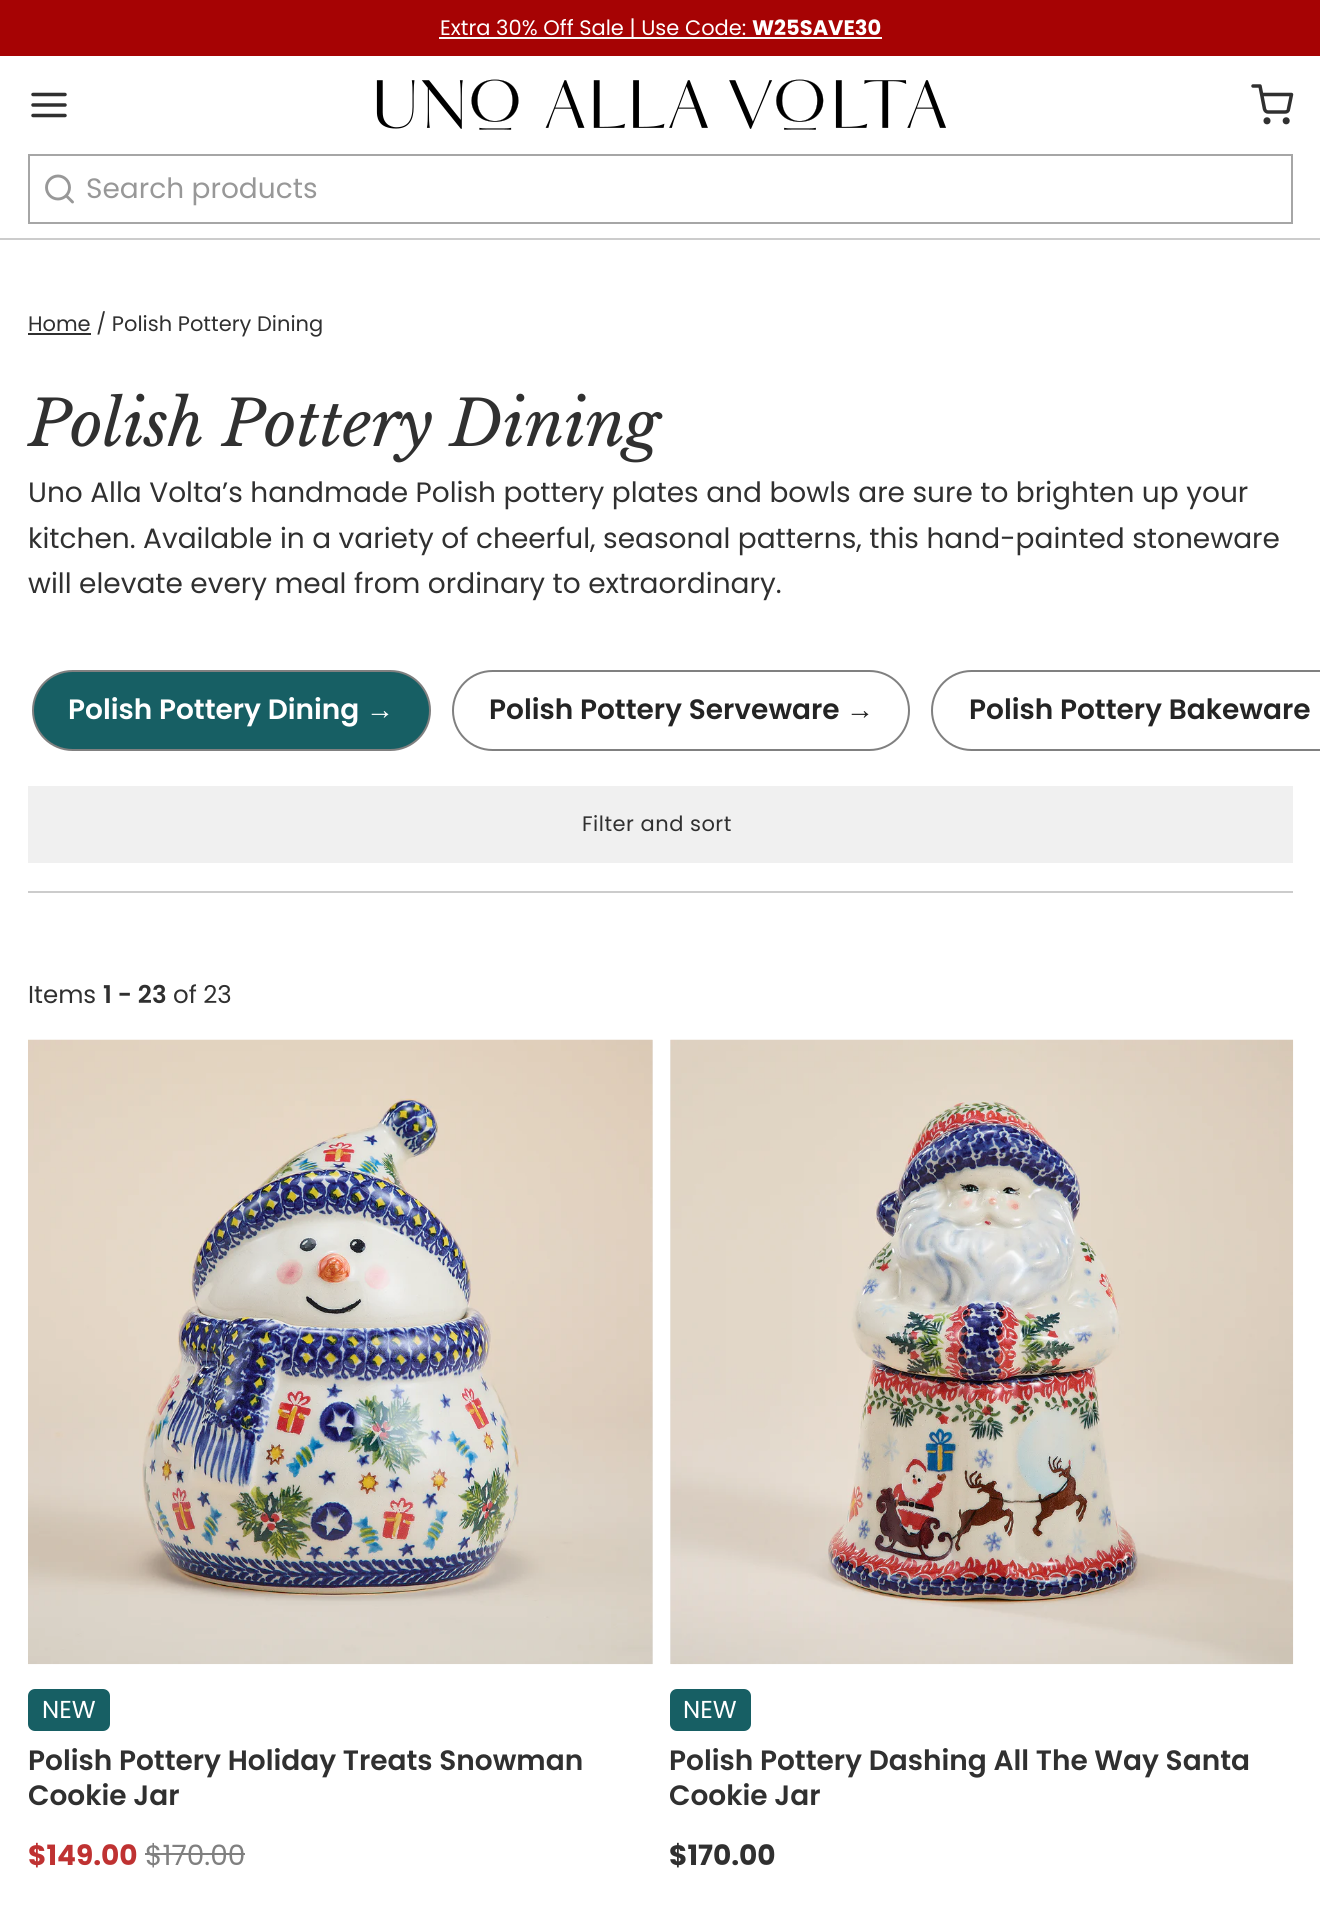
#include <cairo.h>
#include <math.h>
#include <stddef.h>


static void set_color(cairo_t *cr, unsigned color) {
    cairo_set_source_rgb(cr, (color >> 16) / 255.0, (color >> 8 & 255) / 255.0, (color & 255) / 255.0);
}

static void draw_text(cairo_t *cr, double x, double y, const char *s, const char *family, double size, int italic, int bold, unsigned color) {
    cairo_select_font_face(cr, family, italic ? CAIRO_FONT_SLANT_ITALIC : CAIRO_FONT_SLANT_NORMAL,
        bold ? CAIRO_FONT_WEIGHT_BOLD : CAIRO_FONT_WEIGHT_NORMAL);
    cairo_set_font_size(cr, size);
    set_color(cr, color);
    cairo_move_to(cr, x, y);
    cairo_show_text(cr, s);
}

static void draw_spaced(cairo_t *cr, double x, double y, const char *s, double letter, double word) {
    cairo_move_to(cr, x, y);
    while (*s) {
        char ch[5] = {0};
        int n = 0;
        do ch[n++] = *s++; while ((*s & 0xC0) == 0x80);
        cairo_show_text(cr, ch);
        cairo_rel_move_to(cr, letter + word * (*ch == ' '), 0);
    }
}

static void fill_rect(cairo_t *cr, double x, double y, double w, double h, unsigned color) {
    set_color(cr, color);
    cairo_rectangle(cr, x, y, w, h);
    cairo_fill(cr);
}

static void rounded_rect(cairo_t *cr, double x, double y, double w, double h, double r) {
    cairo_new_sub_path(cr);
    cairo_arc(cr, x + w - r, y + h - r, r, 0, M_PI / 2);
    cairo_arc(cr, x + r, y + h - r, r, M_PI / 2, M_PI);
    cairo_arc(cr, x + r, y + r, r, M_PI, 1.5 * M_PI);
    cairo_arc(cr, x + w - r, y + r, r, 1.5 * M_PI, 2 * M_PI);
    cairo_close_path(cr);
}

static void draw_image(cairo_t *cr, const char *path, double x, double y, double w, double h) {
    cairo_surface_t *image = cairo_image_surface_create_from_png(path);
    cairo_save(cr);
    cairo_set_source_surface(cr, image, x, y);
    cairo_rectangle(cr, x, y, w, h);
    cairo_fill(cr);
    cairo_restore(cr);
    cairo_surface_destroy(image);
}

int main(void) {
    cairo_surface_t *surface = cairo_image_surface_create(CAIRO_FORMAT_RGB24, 1320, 1914);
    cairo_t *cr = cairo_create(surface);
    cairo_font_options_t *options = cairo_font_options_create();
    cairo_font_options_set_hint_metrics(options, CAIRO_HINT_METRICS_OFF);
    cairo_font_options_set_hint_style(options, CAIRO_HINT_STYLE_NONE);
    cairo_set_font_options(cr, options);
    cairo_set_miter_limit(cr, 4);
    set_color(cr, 0xFFFFFF);
    cairo_paint(cr);
    fill_rect(cr, 0, 0, 1320, 56, 0xA60304);
    fill_rect(cr, 439, 37, 443, 2, 0xFAFAFA);
    draw_text(cr, 440, 35, "Extra 30% Off Sale | Use Code:", "Poppins", 21, 0, 0, 0xFFFFFF);
    draw_text(cr, 752, 35, "W25SAVE30", "Poppins", 21, 0, 1, 0xFFFFFF);
    fill_rect(cr, 0, 238, 1320, 2, 0xCCCCCC);
    cairo_new_path(cr);
    cairo_move_to(cr, 33, 105);
    cairo_line_to(cr, 65, 105);
    cairo_move_to(cr, 33, 94.5);
    cairo_line_to(cr, 65, 94.5);
    cairo_move_to(cr, 33, 115.5);
    cairo_line_to(cr, 65, 115.5);
    set_color(cr, 0x303030);
    cairo_set_line_width(cr, 3.5);
    cairo_set_line_cap(cr, CAIRO_LINE_CAP_ROUND);
    cairo_set_line_join(cr, CAIRO_LINE_JOIN_ROUND);
    cairo_stroke(cr);
    draw_image(cr, "assets/img1.png", 376, 79, 570, 51);
    cairo_arc(cr, 1267, 120.8, 1.8, 0, 2 * M_PI);
    cairo_set_line_cap(cr, CAIRO_LINE_CAP_BUTT);
    cairo_set_line_join(cr, CAIRO_LINE_JOIN_MITER);
    cairo_stroke(cr);
    cairo_arc(cr, 1286.2, 120.8, 1.8, 0, 2 * M_PI);
    cairo_stroke(cr);
    cairo_new_path(cr);
    cairo_move_to(cr, 1253, 86);
    cairo_line_to(cr, 1260, 86);
    cairo_line_to(cr, 1264.5, 109);
    cairo_curve_to(cr, 1265, 111, 1266.5, 112, 1268, 112);
    cairo_line_to(cr, 1285, 112);
    cairo_curve_to(cr, 1287, 112, 1288.5, 111, 1288.5, 109);
    cairo_line_to(cr, 1291.5, 94.5);
    cairo_line_to(cr, 1262, 94.5);
    cairo_set_line_cap(cr, CAIRO_LINE_CAP_ROUND);
    cairo_set_line_join(cr, CAIRO_LINE_JOIN_ROUND);
    cairo_stroke(cr);
    cairo_rectangle(cr, 29, 155, 1263, 68);
    set_color(cr, 0xA6A6A6);
    cairo_set_line_width(cr, 2);
    cairo_set_line_cap(cr, CAIRO_LINE_CAP_BUTT);
    cairo_set_line_join(cr, CAIRO_LINE_JOIN_MITER);
    cairo_stroke(cr);
    cairo_arc(cr, 58, 187.5, 11.5, 0, 2 * M_PI);
    set_color(cr, 0x989898);
    cairo_set_line_width(cr, 2.9);
    cairo_stroke(cr);
    cairo_new_path(cr);
    cairo_move_to(cr, 72.5, 202);
    cairo_line_to(cr, 66.5, 196);
    cairo_set_line_cap(cr, CAIRO_LINE_CAP_ROUND);
    cairo_set_line_join(cr, CAIRO_LINE_JOIN_ROUND);
    cairo_stroke(cr);
    draw_text(cr, 86, 198, "Search products", "Poppins", 28, 0, 0, 0x989898);
    fill_rect(cr, 28, 333, 63, 2, 0x303030);
    draw_text(cr, 28, 331, "Home / Polish Pottery Dining", "Poppins", 21, 0, 0, 0x303030);
    draw_text(cr, 28, 446, "Polish Pottery Dining", "Libre Baskerville", 63, 1, 0, 0x303030);
    draw_text(cr, 28, 502, "Uno Alla Volta’s handmade Polish pottery plates and bowls are sure to brighten up your", "Poppins", 28, 0, 0, 0x303030);
    draw_text(cr, 28, 548, "kitchen. Available in a variety of cheerful, seasonal patterns, this hand-painted stoneware", "Poppins", 28, 0, 0, 0x303030);
    draw_text(cr, 28, 593, "will elevate every meal from ordinary to extraordinary.", "Poppins", 28, 0, 0, 0x303030);
    set_color(cr, 0x175F64);
    rounded_rect(cr, 33, 671, 397, 79, 39.5);
    cairo_fill_preserve(cr);
    set_color(cr, 0x808080);
    cairo_set_line_width(cr, 2);
    cairo_set_line_cap(cr, CAIRO_LINE_CAP_BUTT);
    cairo_set_line_join(cr, CAIRO_LINE_JOIN_MITER);
    cairo_stroke(cr);
    draw_text(cr, 68, 719, "Polish Pottery Dining", "Poppins SemiBold", 28, 0, 0, 0xFFFFFF);
    draw_text(cr, 366, 719, "→", "Liberation Sans", 28, 0, 1, 0xFFFFFF);
    rounded_rect(cr, 453, 671, 456, 79, 39.5);
    set_color(cr, 0x808080);
    cairo_stroke(cr);
    draw_text(cr, 489, 719, "Polish Pottery Serveware", "Poppins SemiBold", 28, 0, 0, 0x242424);
    draw_text(cr, 846, 719, "→", "Liberation Sans", 28, 0, 1, 0x242424);
    rounded_rect(cr, 932, 671, 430, 79, 39.5);
    set_color(cr, 0x808080);
    cairo_stroke(cr);
    draw_text(cr, 969, 719, "Polish Pottery Bakeware", "Poppins SemiBold", 28, 0, 0, 0x242424);
    fill_rect(cr, 28, 891, 1265, 2, 0xCCCCCC);
    fill_rect(cr, 28, 786, 1265, 77, 0xF0F0F0);
    cairo_select_font_face(cr, "Poppins", CAIRO_FONT_SLANT_NORMAL, CAIRO_FONT_WEIGHT_NORMAL);
    cairo_set_font_size(cr, 21);
    set_color(cr, 0x303030);
    draw_spaced(cr, 582, 831, "Filter and sort", 0.5, 0);
    draw_text(cr, 28, 1003, "Items", "Poppins", 24.5, 0, 0, 0x303030);
    draw_text(cr, 103, 1003, "1 - 23", "Poppins SemiBold", 24.5, 0, 0, 0x303030);
    draw_text(cr, 173, 1003, "of 23", "Poppins", 24.5, 0, 0, 0x303030);
    fill_rect(cr, 652, 1040, 1, 624, 0xF0F0F0);
    draw_image(cr, "assets/img2.png", 28, 1039, 625, 626);
    set_color(cr, 0x175F64);
    rounded_rect(cr, 28, 1689, 82, 42, 7);
    cairo_fill(cr);
    draw_text(cr, 42, 1718, "NEW", "Poppins", 24.5, 0, 0, 0xFFFFFF);
    draw_text(cr, 28, 1770, "Polish Pottery Holiday Treats Snowman", "Poppins SemiBold", 28, 0, 0, 0x303030);
    draw_text(cr, 28, 1805, "Cookie Jar", "Poppins SemiBold", 28, 0, 0, 0x303030);
    draw_text(cr, 28, 1865, "$149.00", "Poppins", 28, 0, 1, 0xBF3232);
    draw_text(cr, 145, 1865, "$170.00", "Poppins", 28, 0, 0, 0x808080);
    fill_rect(cr, 145, 1853, 100, 2, 0x808080);
    fill_rect(cr, 670, 1040, 1, 624, 0xF0F0F0);
    draw_image(cr, "assets/img3.png", 670, 1039, 624, 626);
    set_color(cr, 0x175F64);
    rounded_rect(cr, 670, 1689, 81, 42, 7);
    cairo_fill(cr);
    draw_text(cr, 683, 1718, "NEW", "Poppins", 24.5, 0, 0, 0xFFFFFF);
    draw_text(cr, 669, 1770, "Polish Pottery Dashing All The Way Santa", "Poppins SemiBold", 28, 0, 0, 0x303030);
    draw_text(cr, 669, 1805, "Cookie Jar", "Poppins SemiBold", 28, 0, 0, 0x303030);
    draw_text(cr, 669, 1865, "$170.00", "Poppins", 28, 0, 1, 0x303030);
    cairo_surface_write_to_png(surface, "output.png");
    cairo_font_options_destroy(options);
    cairo_destroy(cr);
    cairo_surface_destroy(surface);
    return 0;
}
